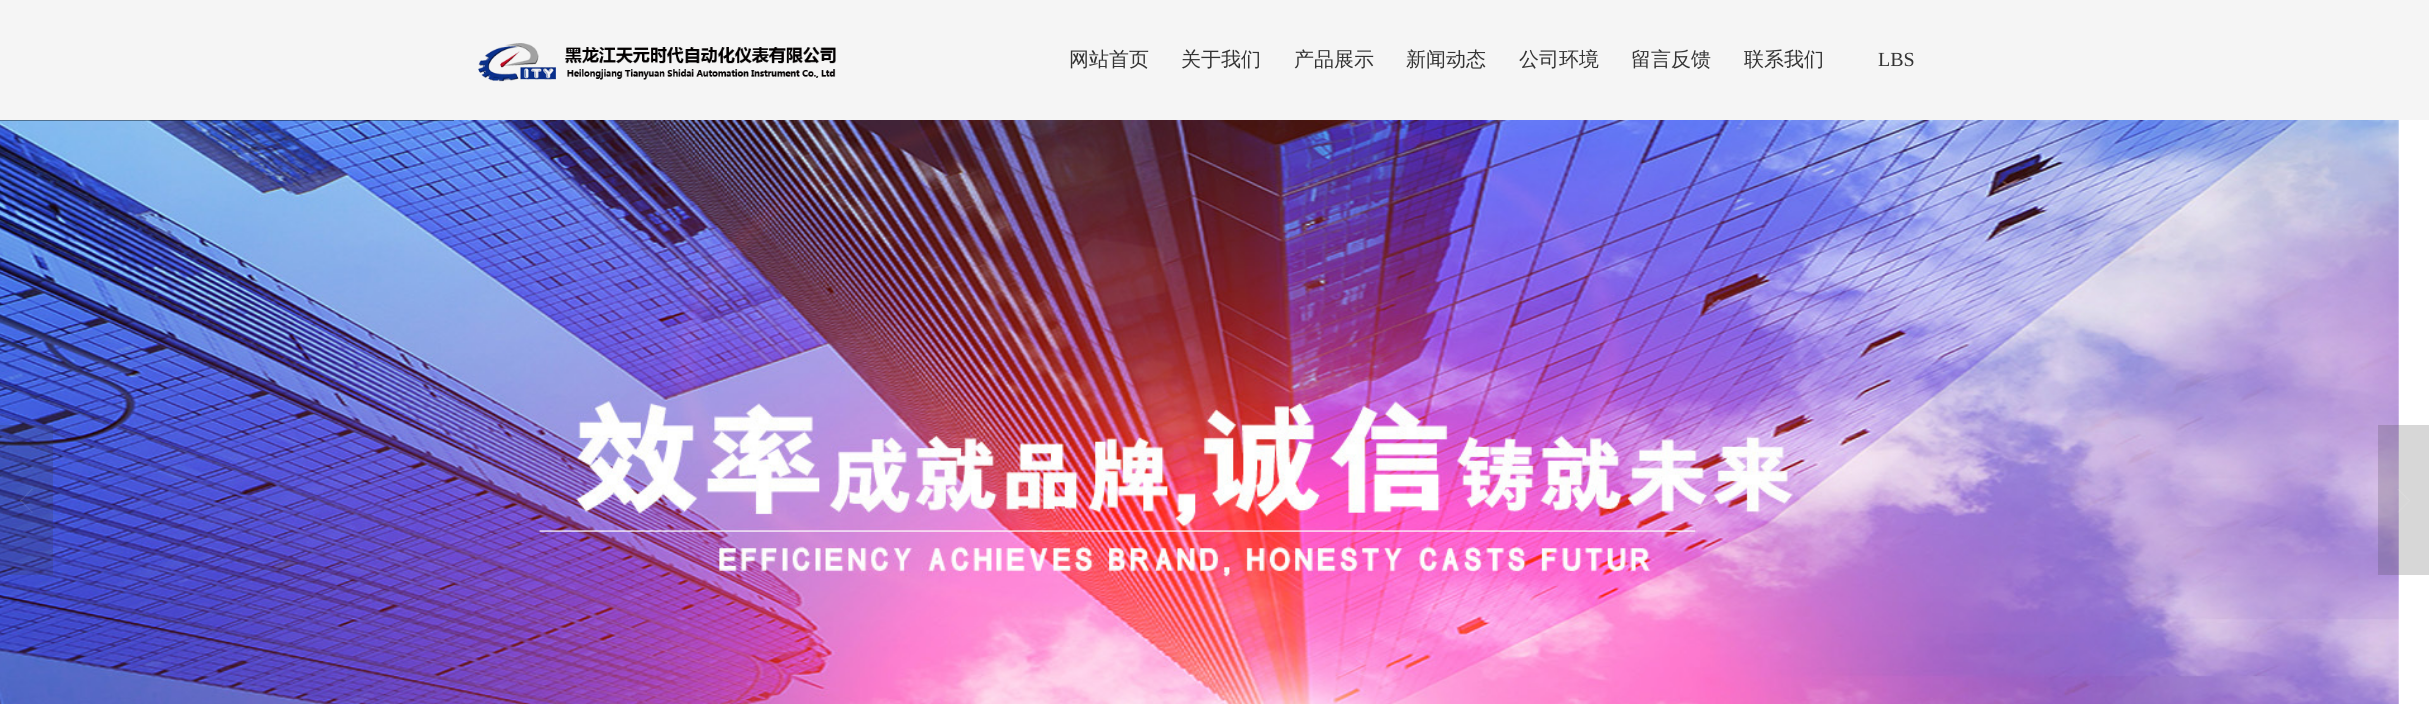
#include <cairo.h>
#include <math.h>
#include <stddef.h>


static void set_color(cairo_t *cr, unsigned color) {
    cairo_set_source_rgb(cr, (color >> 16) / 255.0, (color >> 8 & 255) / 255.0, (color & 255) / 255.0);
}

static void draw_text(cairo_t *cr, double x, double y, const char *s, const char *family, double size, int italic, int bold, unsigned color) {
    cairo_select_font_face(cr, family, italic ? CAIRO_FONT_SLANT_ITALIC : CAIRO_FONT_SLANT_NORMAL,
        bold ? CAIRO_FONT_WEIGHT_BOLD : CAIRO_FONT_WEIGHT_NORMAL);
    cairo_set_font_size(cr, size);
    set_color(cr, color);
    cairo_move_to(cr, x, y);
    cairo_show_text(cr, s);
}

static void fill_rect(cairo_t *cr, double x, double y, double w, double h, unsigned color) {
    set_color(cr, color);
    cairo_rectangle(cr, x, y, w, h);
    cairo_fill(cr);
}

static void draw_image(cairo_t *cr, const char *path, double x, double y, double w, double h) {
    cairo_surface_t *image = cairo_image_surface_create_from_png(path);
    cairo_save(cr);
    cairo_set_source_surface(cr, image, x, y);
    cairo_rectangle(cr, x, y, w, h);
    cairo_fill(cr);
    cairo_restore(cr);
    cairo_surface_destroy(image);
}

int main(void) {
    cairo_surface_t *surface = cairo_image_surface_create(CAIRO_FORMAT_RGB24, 2429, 704);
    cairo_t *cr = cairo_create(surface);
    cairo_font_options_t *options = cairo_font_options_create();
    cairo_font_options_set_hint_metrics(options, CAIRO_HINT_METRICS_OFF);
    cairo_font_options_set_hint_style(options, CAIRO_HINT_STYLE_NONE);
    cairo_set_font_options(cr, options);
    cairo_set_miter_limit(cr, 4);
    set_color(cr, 0xFFFFFF);
    cairo_paint(cr);
    fill_rect(cr, 0, 0, 2429, 120, 0xF5F5F5);
    draw_image(cr, "assets/img1.png", 478, 43, 358, 39);
    draw_text(cr, 1069, 66, "网站首页", "WenQuanYi Zen Hei Medium", 20, 0, 0, 0x333333);
    draw_text(cr, 1181, 66, "关于我们", "WenQuanYi Zen Hei Medium", 20, 0, 0, 0x333333);
    draw_text(cr, 1294, 66, "产品展示", "WenQuanYi Zen Hei Medium", 20, 0, 0, 0x333333);
    draw_text(cr, 1406, 66, "新闻动态", "WenQuanYi Zen Hei Medium", 20, 0, 0, 0x333333);
    draw_text(cr, 1519, 66, "公司环境", "WenQuanYi Zen Hei Medium", 20, 0, 0, 0x333333);
    draw_text(cr, 1631, 66, "留言反馈", "WenQuanYi Zen Hei Medium", 20, 0, 0, 0x333333);
    draw_text(cr, 1744, 66, "联系我们", "WenQuanYi Zen Hei Medium", 20, 0, 0, 0x333333);
    draw_text(cr, 1878, 66, "LBS", "Liberation Serif", 20, 0, 0, 0x333333);
    draw_image(cr, "assets/img2.png", 0, 120, 2399, 584);
    cairo_set_source_rgba(cr, 0, 0, 0, 0.4);
    cairo_rectangle(cr, 0, 120, 454, 1);
    cairo_fill(cr);
    cairo_set_source_rgba(cr, 0.224, 0.224, 0.224, 0.2);
    cairo_rectangle(cr, 0, 425, 53, 150);
    cairo_fill(cr);
    draw_image(cr, "assets/img3.png", 20, 488, 13, 25);
    cairo_rectangle(cr, 2378, 425, 51, 150);
    cairo_fill(cr);
    draw_image(cr, "assets/img4.png", 2397, 489, 13, 24);
    cairo_surface_write_to_png(surface, "output.png");
    cairo_font_options_destroy(options);
    cairo_destroy(cr);
    cairo_surface_destroy(surface);
    return 0;
}
